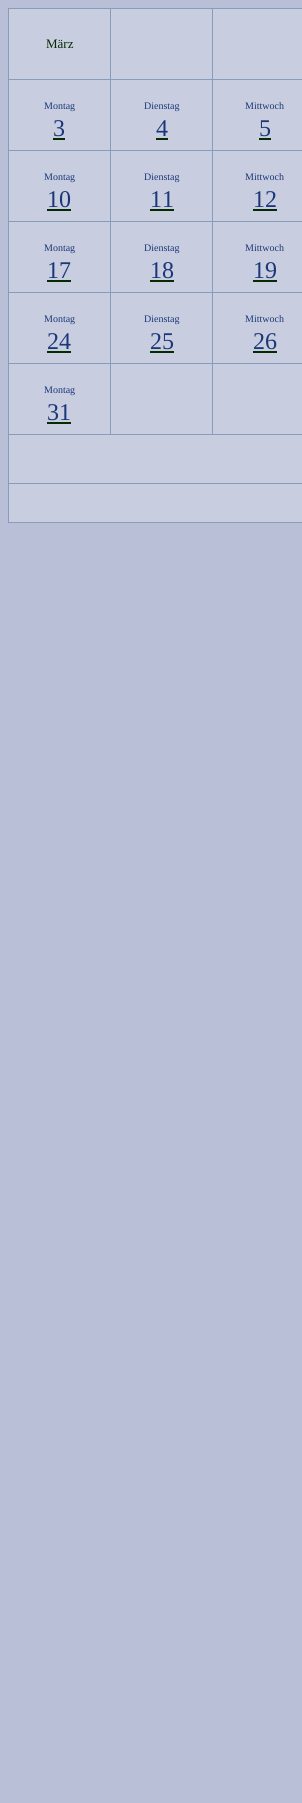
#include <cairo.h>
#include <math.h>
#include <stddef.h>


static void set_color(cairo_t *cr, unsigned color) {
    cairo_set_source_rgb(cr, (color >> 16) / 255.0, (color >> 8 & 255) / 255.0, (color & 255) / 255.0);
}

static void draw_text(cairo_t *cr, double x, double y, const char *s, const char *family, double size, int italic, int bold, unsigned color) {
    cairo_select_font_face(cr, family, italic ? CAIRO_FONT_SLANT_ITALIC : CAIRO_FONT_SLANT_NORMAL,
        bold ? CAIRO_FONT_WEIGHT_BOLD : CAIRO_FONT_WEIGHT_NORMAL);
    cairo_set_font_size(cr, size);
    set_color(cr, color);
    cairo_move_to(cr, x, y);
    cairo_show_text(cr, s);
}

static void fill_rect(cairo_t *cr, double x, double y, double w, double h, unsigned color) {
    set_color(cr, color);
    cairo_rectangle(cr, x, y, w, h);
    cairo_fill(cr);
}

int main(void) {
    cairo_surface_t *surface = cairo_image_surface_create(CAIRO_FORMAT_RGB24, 302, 1803);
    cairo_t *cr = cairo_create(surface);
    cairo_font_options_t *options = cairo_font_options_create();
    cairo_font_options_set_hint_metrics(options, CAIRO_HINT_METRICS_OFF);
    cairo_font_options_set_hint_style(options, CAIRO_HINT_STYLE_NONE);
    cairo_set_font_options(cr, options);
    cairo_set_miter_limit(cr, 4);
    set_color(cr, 0xBABFD8);
    cairo_paint(cr);
    fill_rect(cr, 9, 9, 293, 513, 0xC9CDE0);
    fill_rect(cr, 8, 8, 294, 1, 0x899CBC);
    fill_rect(cr, 8, 522, 294, 1, 0x899CBC);
    fill_rect(cr, 8, 8, 1, 515, 0x899CBC);
    draw_text(cr, 46, 48, "März", "Liberation Serif", 13, 0, 0, 0x052B00);
    fill_rect(cr, 212, 79, 90, 1, 0x899CBC);
    fill_rect(cr, 212, 150, 90, 1, 0x899CBC);
    fill_rect(cr, 212, 221, 90, 1, 0x899CBC);
    fill_rect(cr, 212, 292, 90, 1, 0x899CBC);
    fill_rect(cr, 212, 363, 90, 1, 0x899CBC);
    fill_rect(cr, 8, 434, 294, 1, 0x899CBC);
    fill_rect(cr, 212, 363, 1, 72, 0x899CBC);
    fill_rect(cr, 110, 363, 103, 1, 0x899CBC);
    fill_rect(cr, 212, 292, 1, 72, 0x899CBC);
    fill_rect(cr, 110, 292, 103, 1, 0x899CBC);
    fill_rect(cr, 212, 221, 1, 72, 0x899CBC);
    fill_rect(cr, 110, 221, 103, 1, 0x899CBC);
    fill_rect(cr, 212, 150, 1, 72, 0x899CBC);
    fill_rect(cr, 110, 150, 103, 1, 0x899CBC);
    fill_rect(cr, 212, 79, 1, 72, 0x899CBC);
    fill_rect(cr, 110, 79, 103, 1, 0x899CBC);
    fill_rect(cr, 110, 363, 1, 72, 0x899CBC);
    fill_rect(cr, 8, 363, 103, 1, 0x899CBC);
    fill_rect(cr, 110, 292, 1, 72, 0x899CBC);
    fill_rect(cr, 8, 292, 103, 1, 0x899CBC);
    fill_rect(cr, 110, 221, 1, 72, 0x899CBC);
    fill_rect(cr, 8, 221, 103, 1, 0x899CBC);
    fill_rect(cr, 110, 150, 1, 72, 0x899CBC);
    fill_rect(cr, 8, 150, 103, 1, 0x899CBC);
    fill_rect(cr, 110, 79, 1, 72, 0x899CBC);
    fill_rect(cr, 8, 79, 103, 1, 0x899CBC);
    fill_rect(cr, 110, 8, 1, 72, 0x899CBC);
    fill_rect(cr, 212, 8, 1, 72, 0x899CBC);
    draw_text(cr, 44, 109, "Montag", "Liberation Serif", 10, 0, 0, 0x1A3778);
    draw_text(cr, 53, 136, "3", "Liberation Serif", 24, 0, 0, 0x1A3778);
    fill_rect(cr, 53, 138, 12, 2, 0x052B00);
    draw_text(cr, 144, 109, "Dienstag", "Liberation Serif", 10, 0, 0, 0x1A3778);
    draw_text(cr, 156, 136, "4", "Liberation Serif", 24, 0, 0, 0x1A3778);
    fill_rect(cr, 156, 138, 12, 2, 0x052B00);
    draw_text(cr, 245, 109, "Mittwoch", "Liberation Serif", 10, 0, 0, 0x1A3778);
    draw_text(cr, 259, 136, "5", "Liberation Serif", 24, 0, 0, 0x1A3778);
    fill_rect(cr, 259, 138, 12, 2, 0x052B00);
    draw_text(cr, 44, 180, "Montag", "Liberation Serif", 10, 0, 0, 0x1A3778);
    draw_text(cr, 47, 207, "10", "Liberation Serif", 24, 0, 0, 0x1A3778);
    fill_rect(cr, 47, 209, 24, 2, 0x052B00);
    draw_text(cr, 144, 180, "Dienstag", "Liberation Serif", 10, 0, 0, 0x1A3778);
    draw_text(cr, 150, 207, "11", "Liberation Serif", 24, 0, 0, 0x1A3778);
    fill_rect(cr, 150, 209, 24, 2, 0x052B00);
    draw_text(cr, 245, 180, "Mittwoch", "Liberation Serif", 10, 0, 0, 0x1A3778);
    draw_text(cr, 253, 207, "12", "Liberation Serif", 24, 0, 0, 0x1A3778);
    fill_rect(cr, 253, 209, 24, 2, 0x052B00);
    draw_text(cr, 44, 251, "Montag", "Liberation Serif", 10, 0, 0, 0x1A3778);
    draw_text(cr, 47, 278, "17", "Liberation Serif", 24, 0, 0, 0x1A3778);
    fill_rect(cr, 47, 280, 24, 2, 0x052B00);
    draw_text(cr, 144, 251, "Dienstag", "Liberation Serif", 10, 0, 0, 0x1A3778);
    draw_text(cr, 150, 278, "18", "Liberation Serif", 24, 0, 0, 0x1A3778);
    fill_rect(cr, 150, 280, 24, 2, 0x052B00);
    draw_text(cr, 245, 251, "Mittwoch", "Liberation Serif", 10, 0, 0, 0x1A3778);
    draw_text(cr, 253, 278, "19", "Liberation Serif", 24, 0, 0, 0x1A3778);
    fill_rect(cr, 253, 280, 24, 2, 0x052B00);
    draw_text(cr, 44, 322, "Montag", "Liberation Serif", 10, 0, 0, 0x1A3778);
    draw_text(cr, 47, 349, "24", "Liberation Serif", 24, 0, 0, 0x1A3778);
    fill_rect(cr, 47, 351, 24, 2, 0x052B00);
    draw_text(cr, 144, 322, "Dienstag", "Liberation Serif", 10, 0, 0, 0x1A3778);
    draw_text(cr, 150, 349, "25", "Liberation Serif", 24, 0, 0, 0x1A3778);
    fill_rect(cr, 150, 351, 24, 2, 0x052B00);
    draw_text(cr, 245, 322, "Mittwoch", "Liberation Serif", 10, 0, 0, 0x1A3778);
    draw_text(cr, 253, 349, "26", "Liberation Serif", 24, 0, 0, 0x1A3778);
    fill_rect(cr, 253, 351, 24, 2, 0x052B00);
    draw_text(cr, 44, 393, "Montag", "Liberation Serif", 10, 0, 0, 0x1A3778);
    draw_text(cr, 47, 420, "31", "Liberation Serif", 24, 0, 0, 0x1A3778);
    fill_rect(cr, 47, 422, 24, 2, 0x052B00);
    fill_rect(cr, 8, 483, 294, 1, 0x899CBC);
    cairo_surface_write_to_png(surface, "output.png");
    cairo_font_options_destroy(options);
    cairo_destroy(cr);
    cairo_surface_destroy(surface);
    return 0;
}
